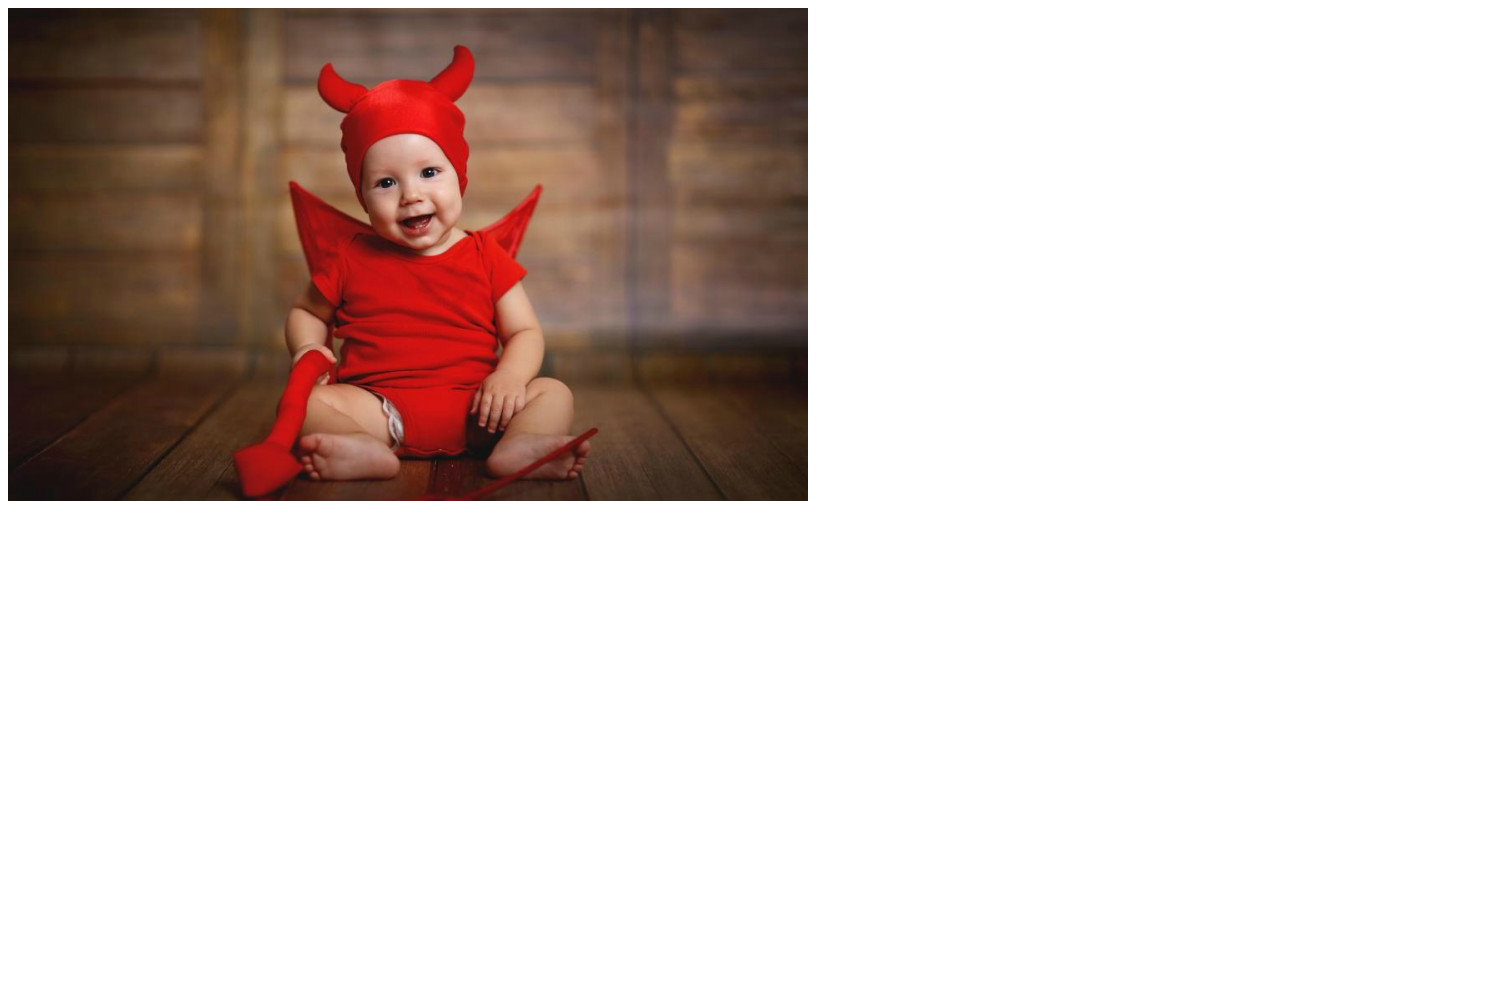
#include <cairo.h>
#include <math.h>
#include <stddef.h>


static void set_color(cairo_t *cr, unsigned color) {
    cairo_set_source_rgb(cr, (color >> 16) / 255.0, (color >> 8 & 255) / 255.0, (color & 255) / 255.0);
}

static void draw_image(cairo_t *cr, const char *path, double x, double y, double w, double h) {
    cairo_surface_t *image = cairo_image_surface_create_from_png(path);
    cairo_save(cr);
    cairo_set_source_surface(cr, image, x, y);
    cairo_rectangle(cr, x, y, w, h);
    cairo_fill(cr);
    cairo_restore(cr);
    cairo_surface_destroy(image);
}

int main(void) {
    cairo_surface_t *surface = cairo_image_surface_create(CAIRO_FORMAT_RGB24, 1496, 996);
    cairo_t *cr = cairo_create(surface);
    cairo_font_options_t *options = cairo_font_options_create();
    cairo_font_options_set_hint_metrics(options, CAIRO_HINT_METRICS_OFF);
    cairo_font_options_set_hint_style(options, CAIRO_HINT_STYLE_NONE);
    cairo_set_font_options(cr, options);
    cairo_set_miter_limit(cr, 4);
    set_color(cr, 0xFFFFFF);
    cairo_paint(cr);
    draw_image(cr, "assets/img1.png", 8, 8, 800, 493);
    cairo_surface_write_to_png(surface, "output.png");
    cairo_font_options_destroy(options);
    cairo_destroy(cr);
    cairo_surface_destroy(surface);
    return 0;
}
